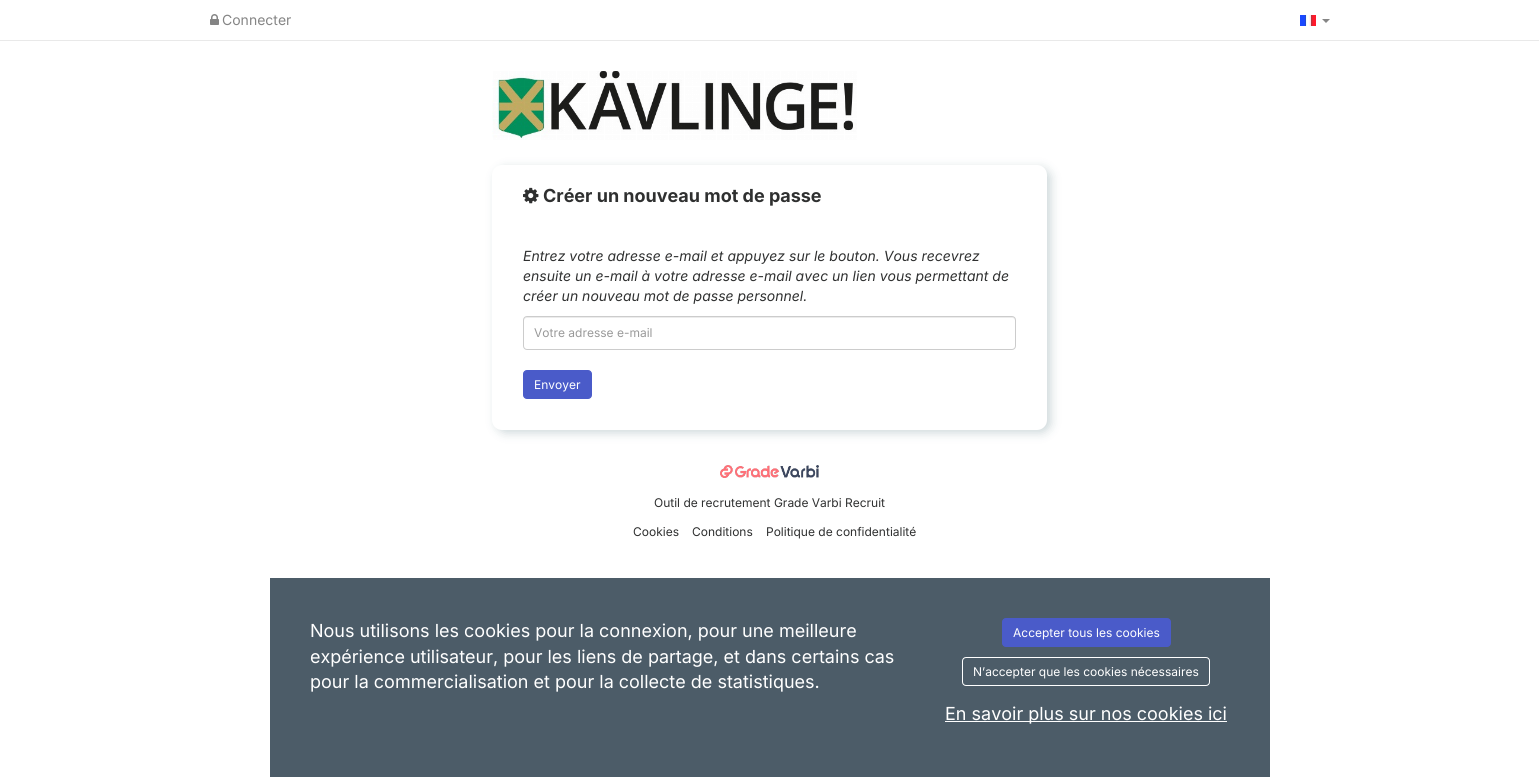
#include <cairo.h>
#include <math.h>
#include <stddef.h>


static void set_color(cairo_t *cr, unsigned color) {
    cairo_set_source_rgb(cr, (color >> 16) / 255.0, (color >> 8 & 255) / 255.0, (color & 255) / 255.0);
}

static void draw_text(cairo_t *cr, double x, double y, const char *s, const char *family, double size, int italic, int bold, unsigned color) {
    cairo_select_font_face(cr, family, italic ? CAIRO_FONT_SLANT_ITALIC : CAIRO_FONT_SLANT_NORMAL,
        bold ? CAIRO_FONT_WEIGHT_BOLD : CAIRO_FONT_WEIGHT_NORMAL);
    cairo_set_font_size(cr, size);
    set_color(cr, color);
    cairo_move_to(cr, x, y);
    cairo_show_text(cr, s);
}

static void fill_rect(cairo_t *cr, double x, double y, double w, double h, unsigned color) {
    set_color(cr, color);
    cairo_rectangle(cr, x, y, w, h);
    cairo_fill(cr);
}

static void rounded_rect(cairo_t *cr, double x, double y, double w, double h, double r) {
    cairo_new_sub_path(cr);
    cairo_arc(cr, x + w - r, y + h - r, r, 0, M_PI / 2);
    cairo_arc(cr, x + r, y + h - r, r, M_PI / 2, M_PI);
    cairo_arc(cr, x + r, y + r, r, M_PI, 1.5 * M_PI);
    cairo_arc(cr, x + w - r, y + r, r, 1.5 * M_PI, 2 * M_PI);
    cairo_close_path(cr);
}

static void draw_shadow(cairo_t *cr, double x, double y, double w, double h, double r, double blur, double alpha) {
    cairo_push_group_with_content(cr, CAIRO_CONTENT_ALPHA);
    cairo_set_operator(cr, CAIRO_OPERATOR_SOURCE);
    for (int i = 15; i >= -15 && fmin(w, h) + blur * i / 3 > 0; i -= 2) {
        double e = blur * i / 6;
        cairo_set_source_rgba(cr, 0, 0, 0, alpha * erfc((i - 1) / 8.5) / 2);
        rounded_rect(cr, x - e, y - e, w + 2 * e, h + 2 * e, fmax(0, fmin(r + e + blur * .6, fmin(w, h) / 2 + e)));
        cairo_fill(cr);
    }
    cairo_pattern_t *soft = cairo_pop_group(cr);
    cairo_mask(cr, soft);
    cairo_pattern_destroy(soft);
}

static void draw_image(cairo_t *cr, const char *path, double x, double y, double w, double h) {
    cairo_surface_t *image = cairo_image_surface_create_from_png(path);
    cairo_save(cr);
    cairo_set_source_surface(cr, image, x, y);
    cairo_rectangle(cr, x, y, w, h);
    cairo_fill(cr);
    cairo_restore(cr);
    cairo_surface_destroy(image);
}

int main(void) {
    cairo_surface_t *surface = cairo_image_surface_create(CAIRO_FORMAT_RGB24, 1539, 777);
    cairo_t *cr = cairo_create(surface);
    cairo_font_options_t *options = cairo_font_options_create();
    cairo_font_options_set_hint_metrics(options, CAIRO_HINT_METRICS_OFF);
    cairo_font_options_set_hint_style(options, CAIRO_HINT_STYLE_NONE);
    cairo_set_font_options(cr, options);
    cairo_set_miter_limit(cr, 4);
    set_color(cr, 0xFFFFFF);
    cairo_paint(cr);
    fill_rect(cr, 0, 40, 1539, 1, 0xE9E9E9);
    draw_image(cr, "assets/img1.png", 210, 14, 9, 11);
    draw_text(cr, 222, 25, "Connecter", "Inter", 14, 0, 0, 0x858585);
    draw_image(cr, "assets/img2.png", 1300, 15, 16, 11);
    cairo_new_path(cr);
    cairo_move_to(cr, 1322, 19);
    cairo_line_to(cr, 1330, 19);
    cairo_line_to(cr, 1326, 23);
    cairo_close_path(cr);
    cairo_fill(cr);
    draw_image(cr, "assets/img3.png", 492, 71, 365, 69);
    set_color(cr, 0x0B3E4A);
    draw_shadow(cr, 496, 168, 555, 265, 10, 5, 0.2);
    set_color(cr, 0xFFFFFF);
    rounded_rect(cr, 492, 165, 555, 265, 10);
    cairo_fill(cr);
    draw_image(cr, "assets/img4.png", 523, 187, 16, 17);
    draw_text(cr, 543, 202, "Créer un nouveau mot de passe", "Inter", 18, 0, 1, 0x2F3030);
    draw_text(cr, 523, 261, "Entrez votre adresse e-mail et appuyez sur le bouton. Vous recevrez", "Inter", 14, 1, 0, 0x2F3030);
    draw_text(cr, 523, 281, "ensuite un e-mail à votre adresse e-mail avec un lien vous permettant de", "Inter", 14, 1, 0, 0x2F3030);
    draw_text(cr, 523, 301, "créer un nouveau mot de passe personnel.", "Inter", 14, 1, 0, 0x2F3030);
    set_color(cr, 0xECECEC);
    cairo_new_path(cr);
    cairo_move_to(cr, 527, 318);
    cairo_line_to(cr, 1012, 318);
    cairo_curve_to(cr, 1014, 318, 1015, 319, 1015, 321);
    cairo_line_to(cr, 1015, 320);
    cairo_curve_to(cr, 1015, 318, 1014, 317, 1012, 317);
    cairo_line_to(cr, 527, 317);
    cairo_curve_to(cr, 525, 317, 524, 318, 524, 320);
    cairo_line_to(cr, 524, 321);
    cairo_curve_to(cr, 524, 319, 525, 318, 527, 318);
    cairo_close_path(cr);
    cairo_fill(cr);
    rounded_rect(cr, 523.5, 316.5, 492, 33, 3.5);
    set_color(cr, 0xCCCCCC);
    cairo_set_line_width(cr, 1);
    cairo_stroke(cr);
    draw_text(cr, 534, 337, "Votre adresse e-mail", "Inter", 12, 0, 0, 0x999999);
    set_color(cr, 0x4A5BC9);
    rounded_rect(cr, 523.5, 370.5, 68, 28, 3.5);
    cairo_fill_preserve(cr);
    cairo_stroke(cr);
    draw_text(cr, 534, 389, "Envoyer", "Inter", 12, 0, 0, 0xFFFFFF);
    draw_image(cr, "assets/img5.png", 720, 465, 99, 13);
    draw_text(cr, 654, 507, "Outil de recrutement Grade Varbi Recruit", "Inter", 12, 0, 0, 0x2F3030);
    draw_text(cr, 633, 536, "Cookies", "Inter", 12, 0, 0, 0x2F3030);
    draw_text(cr, 692, 536, "Conditions", "Inter", 12, 0, 0, 0x2F3030);
    draw_text(cr, 766, 536, "Politique de confidentialité", "Inter", 12, 0, 0, 0x2F3030);
    fill_rect(cr, 270, 578, 1000, 199, 0x4C5C68);
    draw_text(cr, 310, 637, "Nous utilisons les cookies pour la connexion, pour une meilleure", "Inter", 18, 0, 0, 0xFFFFFF);
    draw_text(cr, 310, 663, "expérience utilisateur, pour les liens de partage, et dans certains cas", "Inter", 18, 0, 0, 0xFFFFFF);
    draw_text(cr, 310, 688, "pour la commercialisation et pour la collecte de statistiques.", "Inter", 18, 0, 0, 0xFFFFFF);
    set_color(cr, 0x4A5BC9);
    rounded_rect(cr, 1002.5, 618.5, 168, 28, 3.5);
    cairo_fill_preserve(cr);
    cairo_stroke(cr);
    draw_text(cr, 1013, 637, "Accepter tous les cookies", "Inter", 12, 0, 0, 0xFFFFFF);
    rounded_rect(cr, 962.5, 657.5, 247, 28, 3.5);
    cairo_stroke(cr);
    draw_text(cr, 973, 676, "N’accepter que les cookies nécessaires", "Inter", 12, 0, 0, 0xFFFFFF);
    fill_rect(cr, 945, 721, 282, 1, 0xFFFFFF);
    draw_text(cr, 945, 720, "En savoir plus sur nos cookies ici", "Inter", 18, 0, 0, 0xFFFFFF);
    cairo_surface_write_to_png(surface, "output.png");
    cairo_font_options_destroy(options);
    cairo_destroy(cr);
    cairo_surface_destroy(surface);
    return 0;
}
